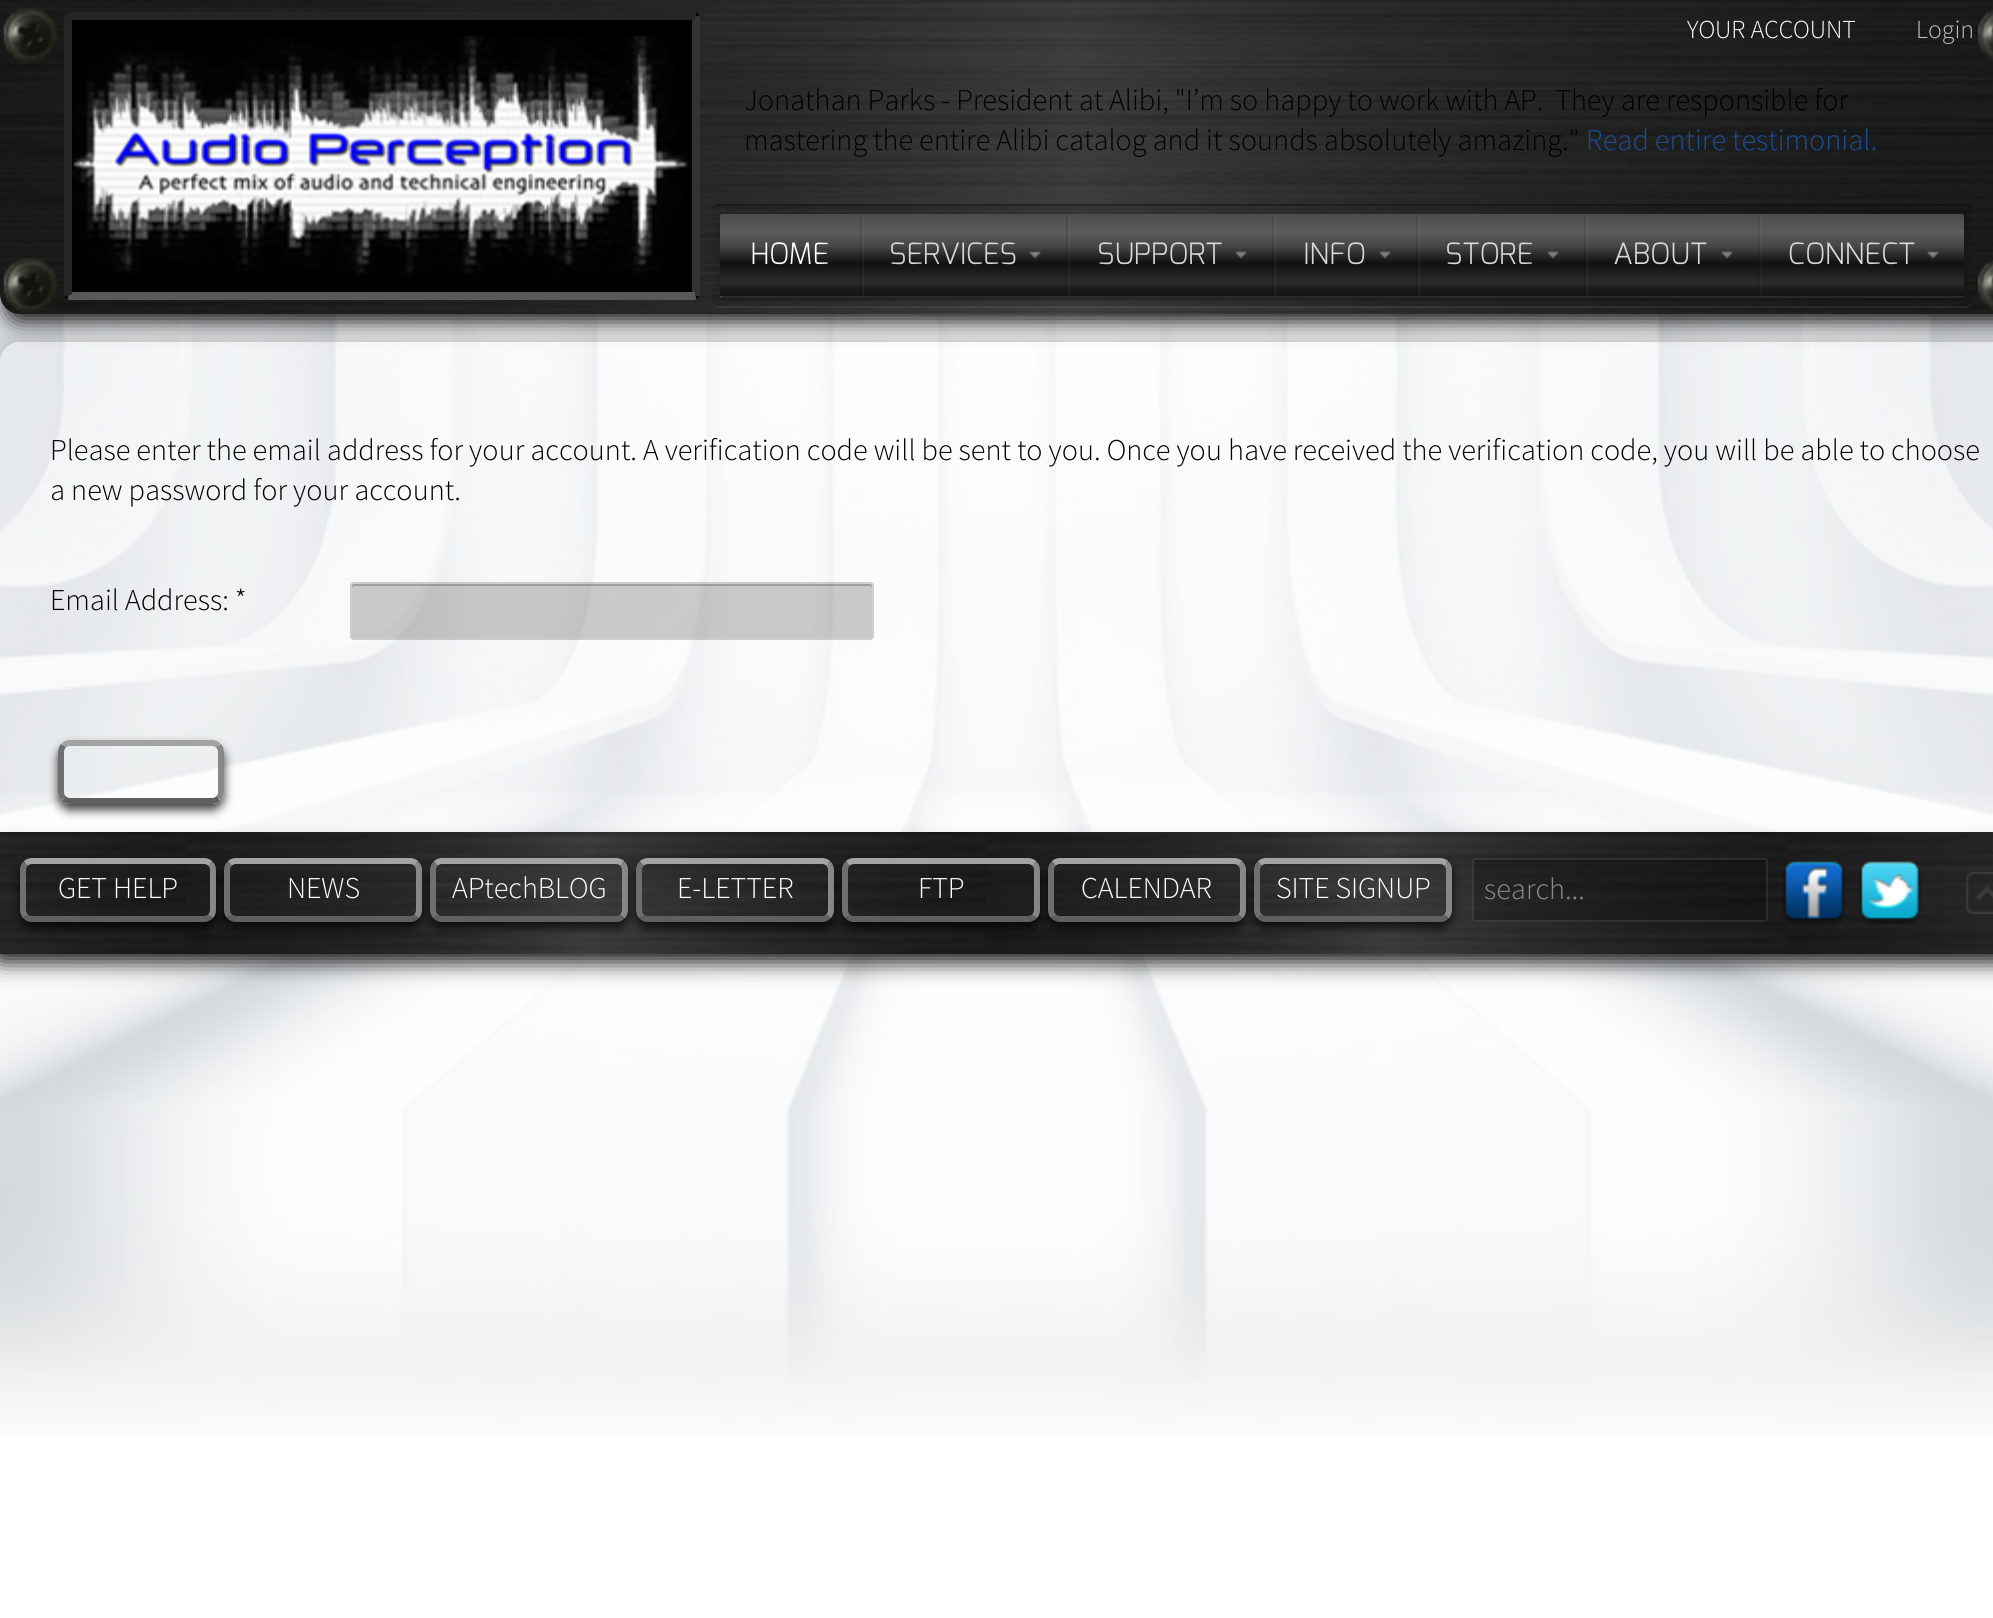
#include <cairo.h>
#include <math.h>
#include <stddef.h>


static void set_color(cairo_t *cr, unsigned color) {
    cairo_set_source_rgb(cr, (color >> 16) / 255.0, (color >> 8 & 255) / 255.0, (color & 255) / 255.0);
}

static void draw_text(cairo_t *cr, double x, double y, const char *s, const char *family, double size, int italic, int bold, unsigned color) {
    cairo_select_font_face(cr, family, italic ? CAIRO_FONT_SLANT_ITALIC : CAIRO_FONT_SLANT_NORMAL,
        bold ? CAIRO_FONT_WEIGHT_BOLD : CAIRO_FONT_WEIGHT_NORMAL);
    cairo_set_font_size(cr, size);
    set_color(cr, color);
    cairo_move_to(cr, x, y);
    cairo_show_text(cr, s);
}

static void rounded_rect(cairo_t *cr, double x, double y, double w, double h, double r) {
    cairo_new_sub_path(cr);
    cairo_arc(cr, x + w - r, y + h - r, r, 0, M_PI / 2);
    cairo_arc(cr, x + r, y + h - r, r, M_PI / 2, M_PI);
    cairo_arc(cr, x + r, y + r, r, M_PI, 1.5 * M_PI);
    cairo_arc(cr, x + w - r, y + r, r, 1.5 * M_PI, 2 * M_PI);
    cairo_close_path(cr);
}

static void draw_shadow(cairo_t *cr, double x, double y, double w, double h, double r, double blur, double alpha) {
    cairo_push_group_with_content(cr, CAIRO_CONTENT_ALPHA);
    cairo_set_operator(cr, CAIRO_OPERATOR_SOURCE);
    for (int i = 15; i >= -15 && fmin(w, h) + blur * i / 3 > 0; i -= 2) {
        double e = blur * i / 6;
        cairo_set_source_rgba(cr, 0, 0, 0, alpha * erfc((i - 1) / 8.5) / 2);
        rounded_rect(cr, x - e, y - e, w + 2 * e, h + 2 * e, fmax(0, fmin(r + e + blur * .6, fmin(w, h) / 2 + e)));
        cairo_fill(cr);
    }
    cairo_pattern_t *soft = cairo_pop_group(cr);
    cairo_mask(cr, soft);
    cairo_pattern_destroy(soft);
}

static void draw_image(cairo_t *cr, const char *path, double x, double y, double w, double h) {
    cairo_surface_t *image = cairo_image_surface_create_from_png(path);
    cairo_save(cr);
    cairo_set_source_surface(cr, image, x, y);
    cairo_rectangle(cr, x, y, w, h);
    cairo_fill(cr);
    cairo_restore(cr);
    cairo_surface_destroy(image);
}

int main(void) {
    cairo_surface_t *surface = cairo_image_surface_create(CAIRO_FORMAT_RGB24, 1993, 1618);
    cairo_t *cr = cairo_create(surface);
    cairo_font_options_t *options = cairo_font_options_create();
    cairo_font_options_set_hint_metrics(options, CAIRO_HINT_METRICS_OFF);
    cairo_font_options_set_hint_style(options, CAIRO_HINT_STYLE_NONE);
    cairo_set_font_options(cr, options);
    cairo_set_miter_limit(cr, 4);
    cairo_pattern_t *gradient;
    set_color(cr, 0xFFFFFF);
    cairo_paint(cr);
    draw_image(cr, "assets/img1.png", 0, 294, 1993, 1140);
    set_color(cr, 0x121212);
    draw_shadow(cr, 6, 20, 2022, 302, 14, 11, 1);
    draw_image(cr, "assets/img2.png", 0, 0, 1993, 314);
    draw_text(cr, 1687, 38, "YOUR ACCOUNT", "Source Sans Pro Light", 24, 0, 0, 0xFFFFFF);
    draw_text(cr, 1916, 38, "Login", "Source Sans Pro Light", 24, 0, 0, 0xC0C0C0);
    cairo_save(cr);
    cairo_set_fill_rule(cr, CAIRO_FILL_RULE_EVEN_ODD);
    cairo_new_path(cr);
    cairo_move_to(cr, 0, 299);
    cairo_line_to(cr, 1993, 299);
    cairo_line_to(cr, 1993, 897);
    cairo_line_to(cr, 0, 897);
    cairo_close_path(cr);
    cairo_move_to(cr, 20, 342);
    cairo_line_to(cr, 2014, 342);
    cairo_curve_to(cr, 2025, 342, 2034, 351, 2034, 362);
    cairo_line_to(cr, 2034, 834);
    cairo_curve_to(cr, 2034, 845, 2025, 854, 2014, 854);
    cairo_line_to(cr, 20, 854);
    cairo_curve_to(cr, 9, 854, 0, 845, 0, 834);
    cairo_line_to(cr, 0, 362);
    cairo_curve_to(cr, 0, 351, 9, 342, 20, 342);
    cairo_close_path(cr);
    cairo_clip(cr);
    set_color(cr, 0xB3B3B3);
    draw_shadow(cr, 0, 342, 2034, 512, 20, 14, 1);
    cairo_restore(cr);
    set_color(cr, 0x000000);
    rounded_rect(cr, 64, 12, 636, 288, 6);
    cairo_fill(cr);
    draw_image(cr, "assets/img3.png", 72, 36, 620, 242);
    cairo_new_path(cr);
    cairo_move_to(cr, 695.5, 16.5);
    cairo_line_to(cr, 696, 18);
    cairo_line_to(cr, 696, 294);
    cairo_line_to(cr, 695.5, 295.5);
    set_color(cr, 0x333333);
    cairo_set_line_width(cr, 8);
    cairo_stroke(cr);
    cairo_new_path(cr);
    cairo_move_to(cr, 695.5, 295.5);
    cairo_line_to(cr, 694, 296);
    cairo_line_to(cr, 70, 296);
    cairo_line_to(cr, 68.5, 295.5);
    set_color(cr, 0x595959);
    cairo_stroke(cr);
    cairo_new_path(cr);
    cairo_move_to(cr, 68.5, 295.5);
    cairo_line_to(cr, 68, 294);
    cairo_line_to(cr, 68, 18);
    cairo_line_to(cr, 68.5, 16.5);
    cairo_line_to(cr, 70, 16);
    cairo_line_to(cr, 694, 16);
    cairo_line_to(cr, 695.5, 16.5);
    set_color(cr, 0x252525);
    cairo_stroke(cr);
    draw_text(cr, 744, 110, "Jonathan Parks - President at Alibi, \"I’m so happy to work with AP.  They are responsible for", "Source Sans Pro Light", 28, 0, 0, 0x000000);
    draw_text(cr, 744, 150, "mastering the entire Alibi catalog and it sounds absolutely amazing.\"", "Source Sans Pro Light", 28, 0, 0, 0x000000);
    draw_text(cr, 1586, 150, "Read entire testimonial.", "Source Sans Pro Light", 28, 0, 0, 0x194E96);
    cairo_set_source_rgba(cr, 0, 0, 0, 0.08);
    rounded_rect(cr, 712, 204, 1260, 104, 6);
    cairo_fill(cr);
    cairo_set_source_rgba(cr, 0, 0, 0, 0.3);
    cairo_new_path(cr);
    cairo_move_to(cr, 718, 204);
    cairo_curve_to(cr, 715, 204, 712, 207, 712, 210);
    cairo_curve_to(cr, 712, 208, 715, 206, 718, 206);
    cairo_line_to(cr, 1966, 206);
    cairo_curve_to(cr, 1969, 206, 1972, 208, 1972, 210);
    cairo_curve_to(cr, 1972, 207, 1969, 204, 1966, 204);
    cairo_close_path(cr);
    cairo_fill(cr);
    cairo_set_source_rgba(cr, 1, 1, 1, 0.08);
    cairo_new_path(cr);
    cairo_move_to(cr, 1966, 308);
    cairo_curve_to(cr, 1969, 308, 1972, 305, 1972, 302);
    cairo_curve_to(cr, 1972, 304, 1969, 306, 1966, 306);
    cairo_line_to(cr, 718, 306);
    cairo_curve_to(cr, 715, 306, 712, 304, 712, 302);
    cairo_curve_to(cr, 712, 305, 715, 308, 718, 308);
    cairo_close_path(cr);
    cairo_fill(cr);
    set_color(cr, 0x000000);
    draw_shadow(cr, 720, 216, 1244, 84, 2, 1, 0.3);
    gradient = cairo_pattern_create_linear(1342, 214, 1342, 296);
    cairo_pattern_add_color_stop_rgba(gradient, 0, 0.298, 0.298, 0.298, 1);
    cairo_pattern_add_color_stop_rgba(gradient, 0.22, 0.357, 0.357, 0.357, 1);
    cairo_pattern_add_color_stop_rgba(gradient, 0.39, 0.278, 0.278, 0.278, 1);
    cairo_pattern_add_color_stop_rgba(gradient, 0.49, 0.173, 0.173, 0.173, 1);
    cairo_pattern_add_color_stop_rgba(gradient, 0.6, 0.067, 0.067, 0.067, 1);
    cairo_pattern_add_color_stop_rgba(gradient, 0.84, 0.169, 0.169, 0.169, 1);
    cairo_pattern_add_color_stop_rgba(gradient, 0.91, 0.11, 0.11, 0.11, 1);
    cairo_pattern_add_color_stop_rgba(gradient, 1, 0.075, 0.075, 0.075, 1);
    cairo_set_source(cr, gradient);
    cairo_pattern_destroy(gradient);
    cairo_new_path(cr);
    cairo_move_to(cr, 722, 214);
    cairo_line_to(cr, 1962, 214);
    cairo_curve_to(cr, 1963, 214, 1964, 215, 1964, 216);
    cairo_line_to(cr, 1964, 296);
    cairo_line_to(cr, 720, 296);
    cairo_line_to(cr, 720, 216);
    cairo_curve_to(cr, 720, 215, 721, 214, 722, 214);
    cairo_close_path(cr);
    cairo_fill(cr);
    gradient = cairo_pattern_create_linear(1342, 296, 1342, 378);
    cairo_pattern_add_color_stop_rgba(gradient, 0, 0.298, 0.298, 0.298, 1);
    cairo_pattern_add_color_stop_rgba(gradient, 0.22, 0.357, 0.357, 0.357, 1);
    cairo_pattern_add_color_stop_rgba(gradient, 0.39, 0.278, 0.278, 0.278, 1);
    cairo_pattern_add_color_stop_rgba(gradient, 0.49, 0.173, 0.173, 0.173, 1);
    cairo_pattern_add_color_stop_rgba(gradient, 0.6, 0.067, 0.067, 0.067, 1);
    cairo_pattern_add_color_stop_rgba(gradient, 0.84, 0.169, 0.169, 0.169, 1);
    cairo_pattern_add_color_stop_rgba(gradient, 0.91, 0.11, 0.11, 0.11, 1);
    cairo_pattern_add_color_stop_rgba(gradient, 1, 0.075, 0.075, 0.075, 1);
    cairo_set_source(cr, gradient);
    cairo_pattern_destroy(gradient);
    cairo_new_path(cr);
    cairo_move_to(cr, 720, 296);
    cairo_line_to(cr, 1964, 296);
    cairo_curve_to(cr, 1964, 297, 1963, 298, 1962, 298);
    cairo_line_to(cr, 722, 298);
    cairo_curve_to(cr, 721, 298, 720, 297, 720, 296);
    cairo_close_path(cr);
    cairo_fill(cr);
    cairo_set_source_rgba(cr, 0, 0, 0, 0.45);
    cairo_rectangle(cr, 722, 296, 1242, 2);
    cairo_fill(cr);
    draw_text(cr, 750, 264, "HOME", "Exo Light", 30, 0, 0, 0xFFFFFF);
    draw_image(cr, "assets/img4.png", 860, 214, 4, 82);
    draw_image(cr, "assets/img5.png", 1029, 251, 12, 8);
    draw_text(cr, 889, 264, "SERVICES", "Exo Light", 30, 0, 0, 0xD6DADD);
    draw_image(cr, "assets/img4.png", 1066, 214, 4, 82);
    draw_image(cr, "assets/img5.png", 1235, 251, 12, 8);
    draw_text(cr, 1097, 264, "SUPPORT", "Exo Light", 30, 0, 0, 0xD6DADD);
    draw_image(cr, "assets/img4.png", 1272, 214, 4, 82);
    draw_image(cr, "assets/img5.png", 1379, 251, 12, 8);
    draw_text(cr, 1303, 264, "INFO", "Exo Light", 30, 0, 0, 0xD6DADD);
    draw_image(cr, "assets/img4.png", 1416, 214, 4, 82);
    draw_image(cr, "assets/img5.png", 1547, 251, 12, 8);
    draw_text(cr, 1445, 264, "STORE", "Exo Light", 30, 0, 0, 0xD6DADD);
    draw_image(cr, "assets/img4.png", 1584, 214, 4, 82);
    draw_image(cr, "assets/img5.png", 1721, 251, 12, 8);
    draw_text(cr, 1613, 264, "ABOUT", "Exo Light", 30, 0, 0, 0xD6DADD);
    draw_image(cr, "assets/img4.png", 1758, 214, 4, 82);
    draw_image(cr, "assets/img5.png", 1927, 251, 12, 8);
    draw_text(cr, 1788, 264, "CONNECT", "Exo Light", 30, 0, 0, 0xD6DADD);
    cairo_set_source_rgba(cr, 0.996, 1, 0.996, 0.41);
    rounded_rect(cr, 0, 342, 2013, 512, 20);
    cairo_fill(cr);
    draw_text(cr, 50, 460, "Please enter the email address for your account. A verification code will be sent to you. Once you have received the verification code, you will be able to choose", "Source Sans Pro Light", 28, 0, 0, 0x000000);
    draw_text(cr, 50, 500, "a new password for your account.", "Source Sans Pro Light", 28, 0, 0, 0x000000);
    draw_text(cr, 50, 610, "Email Address: *", "Source Sans Pro Light", 28, 0, 0, 0x000000);
    cairo_set_source_rgba(cr, 0, 0, 0, 0.2);
    rounded_rect(cr, 350, 582, 524, 58, 4);
    cairo_fill(cr);
    cairo_new_path(cr);
    cairo_move_to(cr, 354, 586);
    cairo_line_to(cr, 870, 586);
    cairo_curve_to(cr, 871, 586, 872, 587, 872, 588);
    cairo_curve_to(cr, 872, 586, 872, 584, 870, 584);
    cairo_line_to(cr, 353, 584);
    cairo_line_to(cr, 352, 585);
    cairo_line_to(cr, 352, 588);
    cairo_curve_to(cr, 352, 587, 353, 586, 354, 586);
    cairo_close_path(cr);
    cairo_fill(cr);
    rounded_rect(cr, 351, 583, 522, 56, 3);
    cairo_set_source_rgba(cr, 1, 1, 1, 0.1);
    cairo_set_line_width(cr, 2);
    cairo_stroke(cr);
    cairo_save(cr);
    cairo_set_fill_rule(cr, CAIRO_FILL_RULE_EVEN_ODD);
    cairo_new_path(cr);
    cairo_move_to(cr, 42, 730);
    cairo_line_to(cr, 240, 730);
    cairo_line_to(cr, 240, 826);
    cairo_line_to(cr, 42, 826);
    cairo_close_path(cr);
    cairo_move_to(cr, 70, 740);
    cairo_line_to(cr, 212, 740);
    cairo_curve_to(cr, 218.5, 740, 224, 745.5, 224, 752);
    cairo_line_to(cr, 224, 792);
    cairo_curve_to(cr, 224, 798.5, 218.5, 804, 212, 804);
    cairo_line_to(cr, 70, 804);
    cairo_curve_to(cr, 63.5, 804, 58, 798.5, 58, 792);
    cairo_line_to(cr, 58, 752);
    cairo_curve_to(cr, 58, 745.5, 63.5, 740, 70, 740);
    cairo_close_path(cr);
    cairo_clip(cr);
    set_color(cr, 0x030002);
    draw_shadow(cr, 58, 746, 166, 64, 12, 5, 0.75);
    cairo_restore(cr);
    cairo_new_path(cr);
    cairo_move_to(cr, 63.5, 745.5);
    cairo_curve_to(cr, 65.5, 744, 67.5, 743, 70, 743);
    cairo_line_to(cr, 212, 743);
    cairo_curve_to(cr, 214.5, 743, 216.5, 744, 218.5, 745.5);
    set_color(cr, 0xA3A3A3);
    cairo_set_line_width(cr, 6);
    cairo_stroke(cr);
    cairo_new_path(cr);
    cairo_move_to(cr, 218.5, 745.5);
    cairo_curve_to(cr, 220, 747.5, 221, 749.5, 221, 752);
    cairo_line_to(cr, 221, 792);
    cairo_curve_to(cr, 221, 794.5, 220, 796.5, 218.5, 798.5);
    set_color(cr, 0x888888);
    cairo_stroke(cr);
    cairo_new_path(cr);
    cairo_move_to(cr, 218.5, 798.5);
    cairo_curve_to(cr, 216.5, 800, 214.5, 801, 212, 801);
    cairo_line_to(cr, 70, 801);
    cairo_curve_to(cr, 67.5, 801, 65.5, 800, 63.5, 798.5);
    set_color(cr, 0x606060);
    cairo_stroke(cr);
    cairo_new_path(cr);
    cairo_move_to(cr, 63.5, 798.5);
    cairo_curve_to(cr, 62, 796.5, 61, 794.5, 61, 792);
    cairo_line_to(cr, 61, 752);
    cairo_curve_to(cr, 61, 749.5, 62, 747.5, 63.5, 745.5);
    set_color(cr, 0x6F6F6F);
    cairo_stroke(cr);
    set_color(cr, 0x121212);
    draw_shadow(cr, -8, 852, 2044, 110, 10, 11, 1);
    draw_image(cr, "assets/img6.png", 0, 832, 1993, 122);
    cairo_save(cr);
    cairo_set_fill_rule(cr, CAIRO_FILL_RULE_EVEN_ODD);
    cairo_new_path(cr);
    cairo_move_to(cr, 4, 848);
    cairo_line_to(cr, 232, 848);
    cairo_line_to(cr, 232, 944);
    cairo_line_to(cr, 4, 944);
    cairo_close_path(cr);
    cairo_move_to(cr, 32, 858);
    cairo_line_to(cr, 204, 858);
    cairo_curve_to(cr, 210.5, 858, 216, 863.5, 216, 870);
    cairo_line_to(cr, 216, 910);
    cairo_curve_to(cr, 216, 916.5, 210.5, 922, 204, 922);
    cairo_line_to(cr, 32, 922);
    cairo_curve_to(cr, 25.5, 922, 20, 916.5, 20, 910);
    cairo_line_to(cr, 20, 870);
    cairo_curve_to(cr, 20, 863.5, 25.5, 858, 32, 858);
    cairo_close_path(cr);
    cairo_clip(cr);
    set_color(cr, 0x030002);
    draw_shadow(cr, 20, 864, 196, 64, 12, 5, 0.75);
    cairo_restore(cr);
    cairo_new_path(cr);
    cairo_move_to(cr, 25.5, 863.5);
    cairo_curve_to(cr, 27.5, 862, 29.5, 861, 32, 861);
    cairo_line_to(cr, 204, 861);
    cairo_curve_to(cr, 206.5, 861, 208.5, 862, 210.5, 863.5);
    set_color(cr, 0xA3A3A3);
    cairo_stroke(cr);
    cairo_new_path(cr);
    cairo_move_to(cr, 210.5, 863.5);
    cairo_curve_to(cr, 212, 865.5, 213, 867.5, 213, 870);
    cairo_line_to(cr, 213, 910);
    cairo_curve_to(cr, 213, 912.5, 212, 914.5, 210.5, 916.5);
    set_color(cr, 0x888888);
    cairo_stroke(cr);
    cairo_new_path(cr);
    cairo_move_to(cr, 210.5, 916.5);
    cairo_curve_to(cr, 208.5, 918, 206.5, 919, 204, 919);
    cairo_line_to(cr, 32, 919);
    cairo_curve_to(cr, 29.5, 919, 27.5, 918, 25.5, 916.5);
    set_color(cr, 0x606060);
    cairo_stroke(cr);
    cairo_new_path(cr);
    cairo_move_to(cr, 25.5, 916.5);
    cairo_curve_to(cr, 24, 914.5, 23, 912.5, 23, 910);
    cairo_line_to(cr, 23, 870);
    cairo_curve_to(cr, 23, 867.5, 24, 865.5, 25.5, 863.5);
    set_color(cr, 0x6F6F6F);
    cairo_stroke(cr);
    draw_text(cr, 58, 898, "GET HELP", "Source Sans Pro Light", 28, 0, 0, 0xFFFFFF);
    cairo_save(cr);
    cairo_set_fill_rule(cr, CAIRO_FILL_RULE_EVEN_ODD);
    cairo_new_path(cr);
    cairo_move_to(cr, 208, 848);
    cairo_line_to(cr, 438, 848);
    cairo_line_to(cr, 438, 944);
    cairo_line_to(cr, 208, 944);
    cairo_close_path(cr);
    cairo_move_to(cr, 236, 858);
    cairo_line_to(cr, 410, 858);
    cairo_curve_to(cr, 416.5, 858, 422, 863.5, 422, 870);
    cairo_line_to(cr, 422, 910);
    cairo_curve_to(cr, 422, 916.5, 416.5, 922, 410, 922);
    cairo_line_to(cr, 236, 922);
    cairo_curve_to(cr, 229.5, 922, 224, 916.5, 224, 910);
    cairo_line_to(cr, 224, 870);
    cairo_curve_to(cr, 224, 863.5, 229.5, 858, 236, 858);
    cairo_close_path(cr);
    cairo_clip(cr);
    set_color(cr, 0x030002);
    draw_shadow(cr, 224, 864, 198, 64, 12, 5, 0.75);
    cairo_restore(cr);
    cairo_new_path(cr);
    cairo_move_to(cr, 229.5, 863.5);
    cairo_curve_to(cr, 231.5, 862, 233.5, 861, 236, 861);
    cairo_line_to(cr, 410, 861);
    cairo_curve_to(cr, 412.5, 861, 414.5, 862, 416.5, 863.5);
    set_color(cr, 0xA3A3A3);
    cairo_stroke(cr);
    cairo_new_path(cr);
    cairo_move_to(cr, 416.5, 863.5);
    cairo_curve_to(cr, 418, 865.5, 419, 867.5, 419, 870);
    cairo_line_to(cr, 419, 910);
    cairo_curve_to(cr, 419, 912.5, 418, 914.5, 416.5, 916.5);
    set_color(cr, 0x888888);
    cairo_stroke(cr);
    cairo_new_path(cr);
    cairo_move_to(cr, 416.5, 916.5);
    cairo_curve_to(cr, 414.5, 918, 412.5, 919, 410, 919);
    cairo_line_to(cr, 236, 919);
    cairo_curve_to(cr, 233.5, 919, 231.5, 918, 229.5, 916.5);
    set_color(cr, 0x606060);
    cairo_stroke(cr);
    cairo_new_path(cr);
    cairo_move_to(cr, 229.5, 916.5);
    cairo_curve_to(cr, 228, 914.5, 227, 912.5, 227, 910);
    cairo_line_to(cr, 227, 870);
    cairo_curve_to(cr, 227, 867.5, 228, 865.5, 229.5, 863.5);
    set_color(cr, 0x6F6F6F);
    cairo_stroke(cr);
    draw_text(cr, 287, 898, "NEWS", "Source Sans Pro Light", 28, 0, 0, 0xFFFFFF);
    cairo_save(cr);
    cairo_set_fill_rule(cr, CAIRO_FILL_RULE_EVEN_ODD);
    cairo_new_path(cr);
    cairo_move_to(cr, 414, 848);
    cairo_line_to(cr, 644, 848);
    cairo_line_to(cr, 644, 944);
    cairo_line_to(cr, 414, 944);
    cairo_close_path(cr);
    cairo_move_to(cr, 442, 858);
    cairo_line_to(cr, 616, 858);
    cairo_curve_to(cr, 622.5, 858, 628, 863.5, 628, 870);
    cairo_line_to(cr, 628, 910);
    cairo_curve_to(cr, 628, 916.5, 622.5, 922, 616, 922);
    cairo_line_to(cr, 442, 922);
    cairo_curve_to(cr, 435.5, 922, 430, 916.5, 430, 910);
    cairo_line_to(cr, 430, 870);
    cairo_curve_to(cr, 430, 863.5, 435.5, 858, 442, 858);
    cairo_close_path(cr);
    cairo_clip(cr);
    set_color(cr, 0x030002);
    draw_shadow(cr, 430, 864, 198, 64, 12, 5, 0.75);
    cairo_restore(cr);
    cairo_new_path(cr);
    cairo_move_to(cr, 435.5, 863.5);
    cairo_curve_to(cr, 437.5, 862, 439.5, 861, 442, 861);
    cairo_line_to(cr, 616, 861);
    cairo_curve_to(cr, 618.5, 861, 620.5, 862, 622.5, 863.5);
    set_color(cr, 0xA3A3A3);
    cairo_stroke(cr);
    cairo_new_path(cr);
    cairo_move_to(cr, 622.5, 863.5);
    cairo_curve_to(cr, 624, 865.5, 625, 867.5, 625, 870);
    cairo_line_to(cr, 625, 910);
    cairo_curve_to(cr, 625, 912.5, 624, 914.5, 622.5, 916.5);
    set_color(cr, 0x888888);
    cairo_stroke(cr);
    cairo_new_path(cr);
    cairo_move_to(cr, 622.5, 916.5);
    cairo_curve_to(cr, 620.5, 918, 618.5, 919, 616, 919);
    cairo_line_to(cr, 442, 919);
    cairo_curve_to(cr, 439.5, 919, 437.5, 918, 435.5, 916.5);
    set_color(cr, 0x606060);
    cairo_stroke(cr);
    cairo_new_path(cr);
    cairo_move_to(cr, 435.5, 916.5);
    cairo_curve_to(cr, 434, 914.5, 433, 912.5, 433, 910);
    cairo_line_to(cr, 433, 870);
    cairo_curve_to(cr, 433, 867.5, 434, 865.5, 435.5, 863.5);
    set_color(cr, 0x6F6F6F);
    cairo_stroke(cr);
    draw_text(cr, 452, 898, "APtechBLOG", "Source Sans Pro Light", 28, 0, 0, 0xFFFFFF);
    cairo_save(cr);
    cairo_set_fill_rule(cr, CAIRO_FILL_RULE_EVEN_ODD);
    cairo_new_path(cr);
    cairo_move_to(cr, 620, 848);
    cairo_line_to(cr, 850, 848);
    cairo_line_to(cr, 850, 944);
    cairo_line_to(cr, 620, 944);
    cairo_close_path(cr);
    cairo_move_to(cr, 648, 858);
    cairo_line_to(cr, 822, 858);
    cairo_curve_to(cr, 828.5, 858, 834, 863.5, 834, 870);
    cairo_line_to(cr, 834, 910);
    cairo_curve_to(cr, 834, 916.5, 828.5, 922, 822, 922);
    cairo_line_to(cr, 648, 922);
    cairo_curve_to(cr, 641.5, 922, 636, 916.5, 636, 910);
    cairo_line_to(cr, 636, 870);
    cairo_curve_to(cr, 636, 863.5, 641.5, 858, 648, 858);
    cairo_close_path(cr);
    cairo_clip(cr);
    set_color(cr, 0x030002);
    draw_shadow(cr, 636, 864, 198, 64, 12, 5, 0.75);
    cairo_restore(cr);
    cairo_new_path(cr);
    cairo_move_to(cr, 641.5, 863.5);
    cairo_curve_to(cr, 643.5, 862, 645.5, 861, 648, 861);
    cairo_line_to(cr, 822, 861);
    cairo_curve_to(cr, 824.5, 861, 826.5, 862, 828.5, 863.5);
    set_color(cr, 0xA3A3A3);
    cairo_stroke(cr);
    cairo_new_path(cr);
    cairo_move_to(cr, 828.5, 863.5);
    cairo_curve_to(cr, 830, 865.5, 831, 867.5, 831, 870);
    cairo_line_to(cr, 831, 910);
    cairo_curve_to(cr, 831, 912.5, 830, 914.5, 828.5, 916.5);
    set_color(cr, 0x888888);
    cairo_stroke(cr);
    cairo_new_path(cr);
    cairo_move_to(cr, 828.5, 916.5);
    cairo_curve_to(cr, 826.5, 918, 824.5, 919, 822, 919);
    cairo_line_to(cr, 648, 919);
    cairo_curve_to(cr, 645.5, 919, 643.5, 918, 641.5, 916.5);
    set_color(cr, 0x606060);
    cairo_stroke(cr);
    cairo_new_path(cr);
    cairo_move_to(cr, 641.5, 916.5);
    cairo_curve_to(cr, 640, 914.5, 639, 912.5, 639, 910);
    cairo_line_to(cr, 639, 870);
    cairo_curve_to(cr, 639, 867.5, 640, 865.5, 641.5, 863.5);
    set_color(cr, 0x6F6F6F);
    cairo_stroke(cr);
    draw_text(cr, 677, 898, "E-LETTER", "Source Sans Pro Light", 28, 0, 0, 0xFFFFFF);
    cairo_save(cr);
    cairo_set_fill_rule(cr, CAIRO_FILL_RULE_EVEN_ODD);
    cairo_new_path(cr);
    cairo_move_to(cr, 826, 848);
    cairo_line_to(cr, 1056, 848);
    cairo_line_to(cr, 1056, 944);
    cairo_line_to(cr, 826, 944);
    cairo_close_path(cr);
    cairo_move_to(cr, 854, 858);
    cairo_line_to(cr, 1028, 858);
    cairo_curve_to(cr, 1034.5, 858, 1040, 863.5, 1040, 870);
    cairo_line_to(cr, 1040, 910);
    cairo_curve_to(cr, 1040, 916.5, 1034.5, 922, 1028, 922);
    cairo_line_to(cr, 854, 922);
    cairo_curve_to(cr, 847.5, 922, 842, 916.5, 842, 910);
    cairo_line_to(cr, 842, 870);
    cairo_curve_to(cr, 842, 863.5, 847.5, 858, 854, 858);
    cairo_close_path(cr);
    cairo_clip(cr);
    set_color(cr, 0x030002);
    draw_shadow(cr, 842, 864, 198, 64, 12, 5, 0.75);
    cairo_restore(cr);
    cairo_new_path(cr);
    cairo_move_to(cr, 847.5, 863.5);
    cairo_curve_to(cr, 849.5, 862, 851.5, 861, 854, 861);
    cairo_line_to(cr, 1028, 861);
    cairo_curve_to(cr, 1030.5, 861, 1032.5, 862, 1034.5, 863.5);
    set_color(cr, 0xA3A3A3);
    cairo_stroke(cr);
    cairo_new_path(cr);
    cairo_move_to(cr, 1034.5, 863.5);
    cairo_curve_to(cr, 1036, 865.5, 1037, 867.5, 1037, 870);
    cairo_line_to(cr, 1037, 910);
    cairo_curve_to(cr, 1037, 912.5, 1036, 914.5, 1034.5, 916.5);
    set_color(cr, 0x888888);
    cairo_stroke(cr);
    cairo_new_path(cr);
    cairo_move_to(cr, 1034.5, 916.5);
    cairo_curve_to(cr, 1032.5, 918, 1030.5, 919, 1028, 919);
    cairo_line_to(cr, 854, 919);
    cairo_curve_to(cr, 851.5, 919, 849.5, 918, 847.5, 916.5);
    set_color(cr, 0x606060);
    cairo_stroke(cr);
    cairo_new_path(cr);
    cairo_move_to(cr, 847.5, 916.5);
    cairo_curve_to(cr, 846, 914.5, 845, 912.5, 845, 910);
    cairo_line_to(cr, 845, 870);
    cairo_curve_to(cr, 845, 867.5, 846, 865.5, 847.5, 863.5);
    set_color(cr, 0x6F6F6F);
    cairo_stroke(cr);
    draw_text(cr, 918, 898, "FTP", "Source Sans Pro Light", 28, 0, 0, 0xFFFFFF);
    cairo_save(cr);
    cairo_set_fill_rule(cr, CAIRO_FILL_RULE_EVEN_ODD);
    cairo_new_path(cr);
    cairo_move_to(cr, 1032, 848);
    cairo_line_to(cr, 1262, 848);
    cairo_line_to(cr, 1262, 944);
    cairo_line_to(cr, 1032, 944);
    cairo_close_path(cr);
    cairo_move_to(cr, 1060, 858);
    cairo_line_to(cr, 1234, 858);
    cairo_curve_to(cr, 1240.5, 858, 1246, 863.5, 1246, 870);
    cairo_line_to(cr, 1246, 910);
    cairo_curve_to(cr, 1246, 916.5, 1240.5, 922, 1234, 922);
    cairo_line_to(cr, 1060, 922);
    cairo_curve_to(cr, 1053.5, 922, 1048, 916.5, 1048, 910);
    cairo_line_to(cr, 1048, 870);
    cairo_curve_to(cr, 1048, 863.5, 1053.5, 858, 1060, 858);
    cairo_close_path(cr);
    cairo_clip(cr);
    set_color(cr, 0x030002);
    draw_shadow(cr, 1048, 864, 198, 64, 12, 5, 0.75);
    cairo_restore(cr);
    cairo_new_path(cr);
    cairo_move_to(cr, 1053.5, 863.5);
    cairo_curve_to(cr, 1055.5, 862, 1057.5, 861, 1060, 861);
    cairo_line_to(cr, 1234, 861);
    cairo_curve_to(cr, 1236.5, 861, 1238.5, 862, 1240.5, 863.5);
    set_color(cr, 0xA3A3A3);
    cairo_stroke(cr);
    cairo_new_path(cr);
    cairo_move_to(cr, 1240.5, 863.5);
    cairo_curve_to(cr, 1242, 865.5, 1243, 867.5, 1243, 870);
    cairo_line_to(cr, 1243, 910);
    cairo_curve_to(cr, 1243, 912.5, 1242, 914.5, 1240.5, 916.5);
    set_color(cr, 0x888888);
    cairo_stroke(cr);
    cairo_new_path(cr);
    cairo_move_to(cr, 1240.5, 916.5);
    cairo_curve_to(cr, 1238.5, 918, 1236.5, 919, 1234, 919);
    cairo_line_to(cr, 1060, 919);
    cairo_curve_to(cr, 1057.5, 919, 1055.5, 918, 1053.5, 916.5);
    set_color(cr, 0x606060);
    cairo_stroke(cr);
    cairo_new_path(cr);
    cairo_move_to(cr, 1053.5, 916.5);
    cairo_curve_to(cr, 1052, 914.5, 1051, 912.5, 1051, 910);
    cairo_line_to(cr, 1051, 870);
    cairo_curve_to(cr, 1051, 867.5, 1052, 865.5, 1053.5, 863.5);
    set_color(cr, 0x6F6F6F);
    cairo_stroke(cr);
    draw_text(cr, 1081, 898, "CALENDAR", "Source Sans Pro Light", 28, 0, 0, 0xFFFFFF);
    cairo_save(cr);
    cairo_set_fill_rule(cr, CAIRO_FILL_RULE_EVEN_ODD);
    cairo_new_path(cr);
    cairo_move_to(cr, 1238, 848);
    cairo_line_to(cr, 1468, 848);
    cairo_line_to(cr, 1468, 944);
    cairo_line_to(cr, 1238, 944);
    cairo_close_path(cr);
    cairo_move_to(cr, 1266, 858);
    cairo_line_to(cr, 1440, 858);
    cairo_curve_to(cr, 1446.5, 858, 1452, 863.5, 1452, 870);
    cairo_line_to(cr, 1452, 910);
    cairo_curve_to(cr, 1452, 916.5, 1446.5, 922, 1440, 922);
    cairo_line_to(cr, 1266, 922);
    cairo_curve_to(cr, 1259.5, 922, 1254, 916.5, 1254, 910);
    cairo_line_to(cr, 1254, 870);
    cairo_curve_to(cr, 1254, 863.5, 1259.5, 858, 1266, 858);
    cairo_close_path(cr);
    cairo_clip(cr);
    set_color(cr, 0x030002);
    draw_shadow(cr, 1254, 864, 198, 64, 12, 5, 0.75);
    cairo_restore(cr);
    cairo_new_path(cr);
    cairo_move_to(cr, 1259.5, 863.5);
    cairo_curve_to(cr, 1261.5, 862, 1263.5, 861, 1266, 861);
    cairo_line_to(cr, 1440, 861);
    cairo_curve_to(cr, 1442.5, 861, 1444.5, 862, 1446.5, 863.5);
    set_color(cr, 0xA3A3A3);
    cairo_stroke(cr);
    cairo_new_path(cr);
    cairo_move_to(cr, 1446.5, 863.5);
    cairo_curve_to(cr, 1448, 865.5, 1449, 867.5, 1449, 870);
    cairo_line_to(cr, 1449, 910);
    cairo_curve_to(cr, 1449, 912.5, 1448, 914.5, 1446.5, 916.5);
    set_color(cr, 0x888888);
    cairo_stroke(cr);
    cairo_new_path(cr);
    cairo_move_to(cr, 1446.5, 916.5);
    cairo_curve_to(cr, 1444.5, 918, 1442.5, 919, 1440, 919);
    cairo_line_to(cr, 1266, 919);
    cairo_curve_to(cr, 1263.5, 919, 1261.5, 918, 1259.5, 916.5);
    set_color(cr, 0x606060);
    cairo_stroke(cr);
    cairo_new_path(cr);
    cairo_move_to(cr, 1259.5, 916.5);
    cairo_curve_to(cr, 1258, 914.5, 1257, 912.5, 1257, 910);
    cairo_line_to(cr, 1257, 870);
    cairo_curve_to(cr, 1257, 867.5, 1258, 865.5, 1259.5, 863.5);
    set_color(cr, 0x6F6F6F);
    cairo_stroke(cr);
    draw_text(cr, 1276, 898, "SITE SIGNUP", "Source Sans Pro Light", 28, 0, 0, 0xFFFFFF);
    cairo_set_source_rgba(cr, 0, 0, 0, 0.2);
    rounded_rect(cr, 1472, 858, 296, 64, 4);
    cairo_fill(cr);
    cairo_new_path(cr);
    cairo_move_to(cr, 1476, 862);
    cairo_line_to(cr, 1764, 862);
    cairo_curve_to(cr, 1765, 862, 1766, 863, 1766, 864);
    cairo_curve_to(cr, 1766, 862, 1766, 860, 1764, 860);
    cairo_line_to(cr, 1475, 860);
    cairo_curve_to(cr, 1474, 861, 1474, 863, 1474, 864);
    cairo_curve_to(cr, 1474, 863, 1475, 862, 1476, 862);
    cairo_close_path(cr);
    cairo_fill(cr);
    rounded_rect(cr, 1473, 859, 294, 62, 3);
    cairo_set_source_rgba(cr, 1, 1, 1, 0.1);
    cairo_set_line_width(cr, 2);
    cairo_stroke(cr);
    draw_text(cr, 1484, 899, "search...", "Source Sans Pro Light", 28, 0, 0, 0x8A8C8C);
    draw_image(cr, "assets/img7.png", 1783, 861, 62, 64);
    draw_image(cr, "assets/img8.png", 1859, 861, 62, 64);
    draw_image(cr, "assets/img9.png", 1966, 872, 27, 42);
    cairo_surface_write_to_png(surface, "output.png");
    cairo_font_options_destroy(options);
    cairo_destroy(cr);
    cairo_surface_destroy(surface);
    return 0;
}
